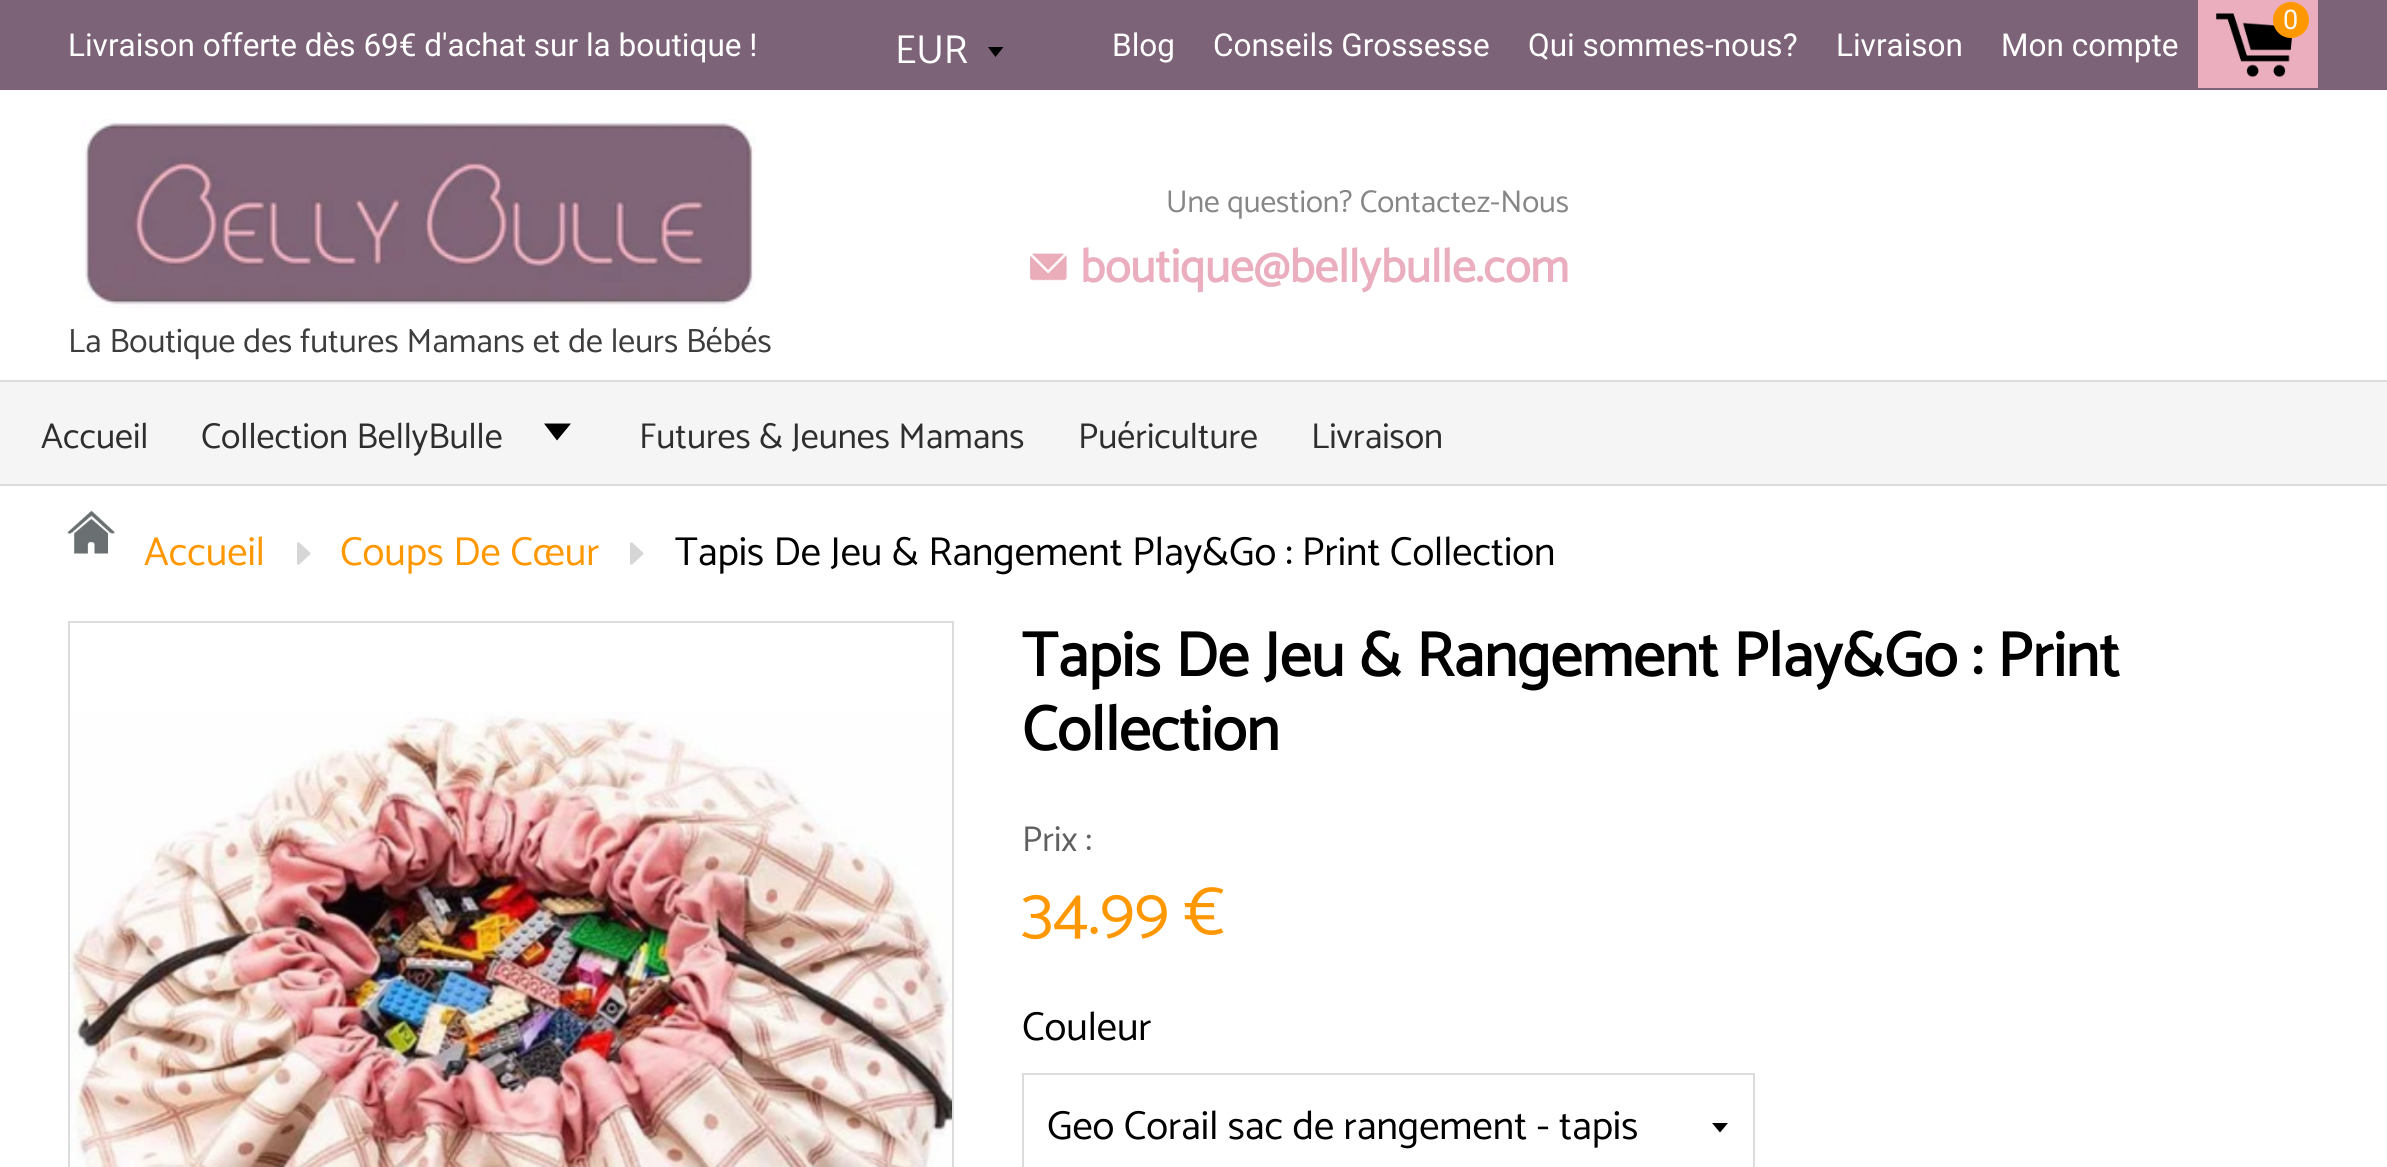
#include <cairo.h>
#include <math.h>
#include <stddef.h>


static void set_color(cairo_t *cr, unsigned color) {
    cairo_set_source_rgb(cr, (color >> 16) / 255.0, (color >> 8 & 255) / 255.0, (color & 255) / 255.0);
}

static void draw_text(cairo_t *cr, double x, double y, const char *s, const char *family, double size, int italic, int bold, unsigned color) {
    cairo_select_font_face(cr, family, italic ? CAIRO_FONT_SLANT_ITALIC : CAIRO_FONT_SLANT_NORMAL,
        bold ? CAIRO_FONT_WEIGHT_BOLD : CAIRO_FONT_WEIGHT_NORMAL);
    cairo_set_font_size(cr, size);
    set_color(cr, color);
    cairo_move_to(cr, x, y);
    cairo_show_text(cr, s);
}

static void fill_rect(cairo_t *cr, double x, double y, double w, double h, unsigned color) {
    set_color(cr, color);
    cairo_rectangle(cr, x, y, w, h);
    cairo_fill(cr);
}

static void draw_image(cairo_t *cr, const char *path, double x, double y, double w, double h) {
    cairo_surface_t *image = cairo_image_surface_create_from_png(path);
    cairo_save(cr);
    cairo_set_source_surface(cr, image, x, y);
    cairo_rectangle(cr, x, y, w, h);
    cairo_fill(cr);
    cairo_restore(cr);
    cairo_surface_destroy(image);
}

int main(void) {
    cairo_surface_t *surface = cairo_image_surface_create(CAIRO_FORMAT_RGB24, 2387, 1167);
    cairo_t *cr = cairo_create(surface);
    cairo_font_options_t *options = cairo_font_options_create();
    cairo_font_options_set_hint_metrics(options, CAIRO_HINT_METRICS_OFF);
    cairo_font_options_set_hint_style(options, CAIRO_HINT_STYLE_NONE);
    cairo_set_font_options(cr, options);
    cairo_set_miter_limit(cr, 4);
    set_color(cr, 0xFFFFFF);
    cairo_paint(cr);
    fill_rect(cr, 0, 0, 2387, 90, 0x7D6378);
    draw_text(cr, 68, 56, "Livraison offerte dès 69€ d'achat sur la boutique !", "Roboto", 31.5, 0, 0, 0xFFFFFF);
    fill_rect(cr, 2198, 0, 120, 88, 0xEAAEBE);
    draw_image(cr, "assets/img1.png", 2216, 13, 76, 64);
    set_color(cr, 0xFF9800);
    cairo_arc(cr, 2291, 20, 18, 0, 2 * M_PI);
    cairo_fill(cr);
    draw_text(cr, 2283, 29, "0", "Roboto", 27, 0, 0, 0xF9F9F9);
    set_color(cr, 0x000000);
    cairo_new_path(cr);
    cairo_move_to(cr, 988, 47);
    cairo_line_to(cr, 995.5, 57);
    cairo_line_to(cr, 1003.5, 47);
    cairo_close_path(cr);
    cairo_fill(cr);
    draw_text(cr, 895, 63, "EUR", "Catamaran Thin", 40.5, 0, 0, 0xFFFFFF);
    draw_text(cr, 1112, 56, "Blog", "Roboto", 31.5, 0, 0, 0xFFFFFF);
    draw_text(cr, 1213, 56, "Conseils Grossesse", "Roboto", 31.5, 0, 0, 0xFFFFFF);
    draw_text(cr, 1528, 56, "Qui sommes-nous?", "Roboto", 31.5, 0, 0, 0xFFFFFF);
    draw_text(cr, 1836, 56, "Livraison", "Roboto", 31.5, 0, 0, 0xFFFFFF);
    draw_text(cr, 2001, 56, "Mon compte", "Roboto", 31.5, 0, 0, 0xFFFFFF);
    draw_text(cr, 1166, 212, "Une question? Contactez-Nous", "Catamaran Thin", 31.5, 0, 0, 0x868686);
    draw_image(cr, "assets/img2.png", 1030, 253, 37, 28);
    draw_text(cr, 1080, 282, "boutique@bellybulle.com", "Catamaran", 47.25, 0, 1, 0xEAAEBE);
    draw_image(cr, "assets/img3.png", 81, 119, 675, 189);
    draw_text(cr, 68, 352, "La Boutique des futures Mamans et de leurs Bébés", "Catamaran Thin", 33.75, 0, 0, 0x3E3C3C);
    fill_rect(cr, 0, 382, 2387, 102, 0xF5F5F5);
    fill_rect(cr, 0, 380, 2387, 2, 0xDDDCDC);
    fill_rect(cr, 0, 484, 2387, 2, 0xDDDCDC);
    draw_text(cr, 41, 448, "Accueil", "Catamaran Thin", 36, 0, 0, 0x2E2E2E);
    draw_text(cr, 201, 448, "Collection BellyBulle", "Catamaran Thin", 36, 0, 0, 0x2E2E2E);
    set_color(cr, 0x000000);
    cairo_new_path(cr);
    cairo_move_to(cr, 544, 423.5);
    cairo_line_to(cr, 557, 440.5);
    cairo_line_to(cr, 571, 423.5);
    cairo_close_path(cr);
    cairo_fill(cr);
    draw_text(cr, 639, 448, "Futures & Jeunes Mamans", "Catamaran Thin", 36, 0, 0, 0x2E2E2E);
    draw_text(cr, 1078, 448, "Puériculture", "Catamaran Thin", 36, 0, 0, 0x2E2E2E);
    draw_text(cr, 1311, 448, "Livraison", "Catamaran Thin", 36, 0, 0, 0x2E2E2E);
    draw_image(cr, "assets/img4.png", 67, 510, 48, 44);
    draw_text(cr, 144, 565, "Accueil", "Catamaran Thin", 40.5, 0, 0, 0xFF9800);
    draw_image(cr, "assets/img5.png", 297, 542, 14, 23);
    draw_text(cr, 340, 565, "Coups De Cœur", "Catamaran Thin", 40.5, 0, 0, 0xFF9800);
    draw_image(cr, "assets/img6.png", 630, 542, 14, 23);
    draw_text(cr, 675, 565, "Tapis De Jeu & Rangement Play&Go : Print Collection", "Catamaran Thin", 40.5, 0, 0, 0x000000);
    cairo_rectangle(cr, 69, 622, 884, 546);
    set_color(cr, 0xDDDCDC);
    cairo_stroke(cr);
    draw_image(cr, "assets/img7.png", 70, 711, 882, 456);
    draw_text(cr, 1022, 676, "Tapis De Jeu & Rangement Play&Go : Print", "Catamaran", 63, 0, 1, 0x000000);
    draw_text(cr, 1022, 750, "Collection", "Catamaran", 63, 0, 1, 0x000000);
    draw_text(cr, 1022, 851, "Prix :", "Catamaran Thin", 36, 0, 0, 0x606060);
    draw_text(cr, 1022, 934, "34.99 €", "Catamaran Thin", 67.5, 0, 0, 0xFF9800);
    draw_text(cr, 1022, 1040, "Couleur", "Catamaran Thin", 40.5, 0, 0, 0x000000);
    cairo_new_path(cr);
    cairo_move_to(cr, 1712, 1123);
    cairo_line_to(cr, 1720, 1132.5);
    cairo_line_to(cr, 1728, 1123);
    cairo_close_path(cr);
    cairo_fill(cr);
    cairo_rectangle(cr, 1023, 1074, 731, 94);
    set_color(cr, 0xDDDCDC);
    cairo_stroke(cr);
    draw_text(cr, 1047, 1139, "Geo Corail sac de rangement - tapis", "Catamaran Thin", 40.5, 0, 0, 0x000000);
    cairo_surface_write_to_png(surface, "output.png");
    cairo_font_options_destroy(options);
    cairo_destroy(cr);
    cairo_surface_destroy(surface);
    return 0;
}
